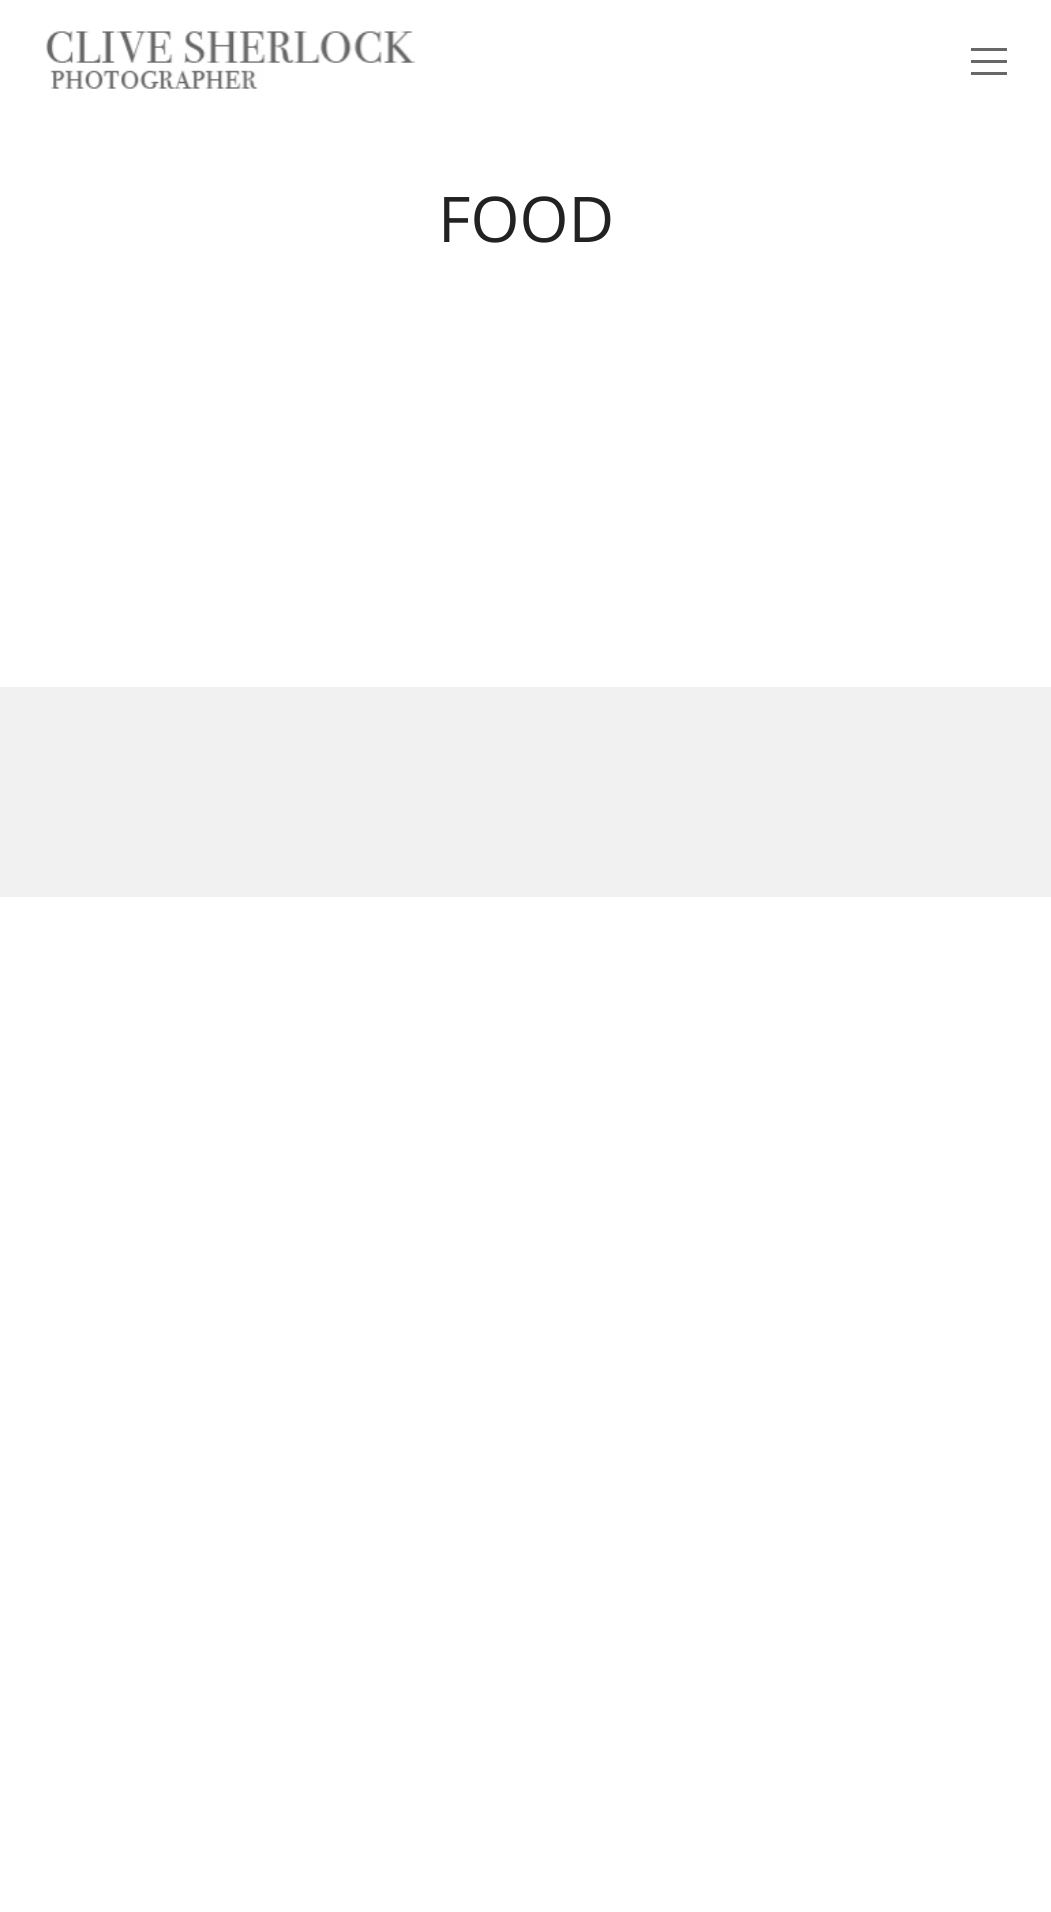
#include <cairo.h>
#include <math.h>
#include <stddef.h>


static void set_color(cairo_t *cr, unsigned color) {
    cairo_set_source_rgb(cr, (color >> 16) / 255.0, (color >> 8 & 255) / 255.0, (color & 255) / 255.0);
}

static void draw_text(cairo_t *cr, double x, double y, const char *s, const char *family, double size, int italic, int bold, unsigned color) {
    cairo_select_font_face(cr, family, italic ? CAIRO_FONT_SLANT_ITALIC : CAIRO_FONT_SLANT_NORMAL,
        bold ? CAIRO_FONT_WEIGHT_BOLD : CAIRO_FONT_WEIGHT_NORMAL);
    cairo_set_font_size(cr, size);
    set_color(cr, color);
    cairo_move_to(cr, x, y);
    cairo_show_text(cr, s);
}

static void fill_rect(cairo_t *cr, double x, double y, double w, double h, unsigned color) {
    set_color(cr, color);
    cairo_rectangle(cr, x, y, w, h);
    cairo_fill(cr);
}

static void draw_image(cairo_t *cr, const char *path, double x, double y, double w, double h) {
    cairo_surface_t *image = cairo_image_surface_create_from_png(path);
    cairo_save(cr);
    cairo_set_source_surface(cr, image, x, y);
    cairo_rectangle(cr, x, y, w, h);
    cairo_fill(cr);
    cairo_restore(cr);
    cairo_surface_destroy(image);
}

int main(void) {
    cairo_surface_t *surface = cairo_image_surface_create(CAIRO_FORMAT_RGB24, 1051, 1912);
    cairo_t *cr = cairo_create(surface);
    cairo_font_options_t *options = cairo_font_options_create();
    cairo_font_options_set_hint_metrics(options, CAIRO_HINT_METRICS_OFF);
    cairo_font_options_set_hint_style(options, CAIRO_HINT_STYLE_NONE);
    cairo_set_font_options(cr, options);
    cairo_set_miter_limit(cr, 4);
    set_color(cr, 0xFFFFFF);
    cairo_paint(cr);
    draw_image(cr, "assets/img1.png", 46, 31, 370, 58);
    fill_rect(cr, 971, 60, 36, 3, 0x686868);
    fill_rect(cr, 971, 48, 36, 3, 0x686868);
    fill_rect(cr, 971, 72, 36, 3, 0x686868);
    draw_text(cr, 438, 242, "FOOD", "Open Sans", 63, 0, 0, 0x222222);
    fill_rect(cr, 0, 687, 1051, 210, 0xF1F1F1);
    cairo_surface_write_to_png(surface, "output.png");
    cairo_font_options_destroy(options);
    cairo_destroy(cr);
    cairo_surface_destroy(surface);
    return 0;
}
